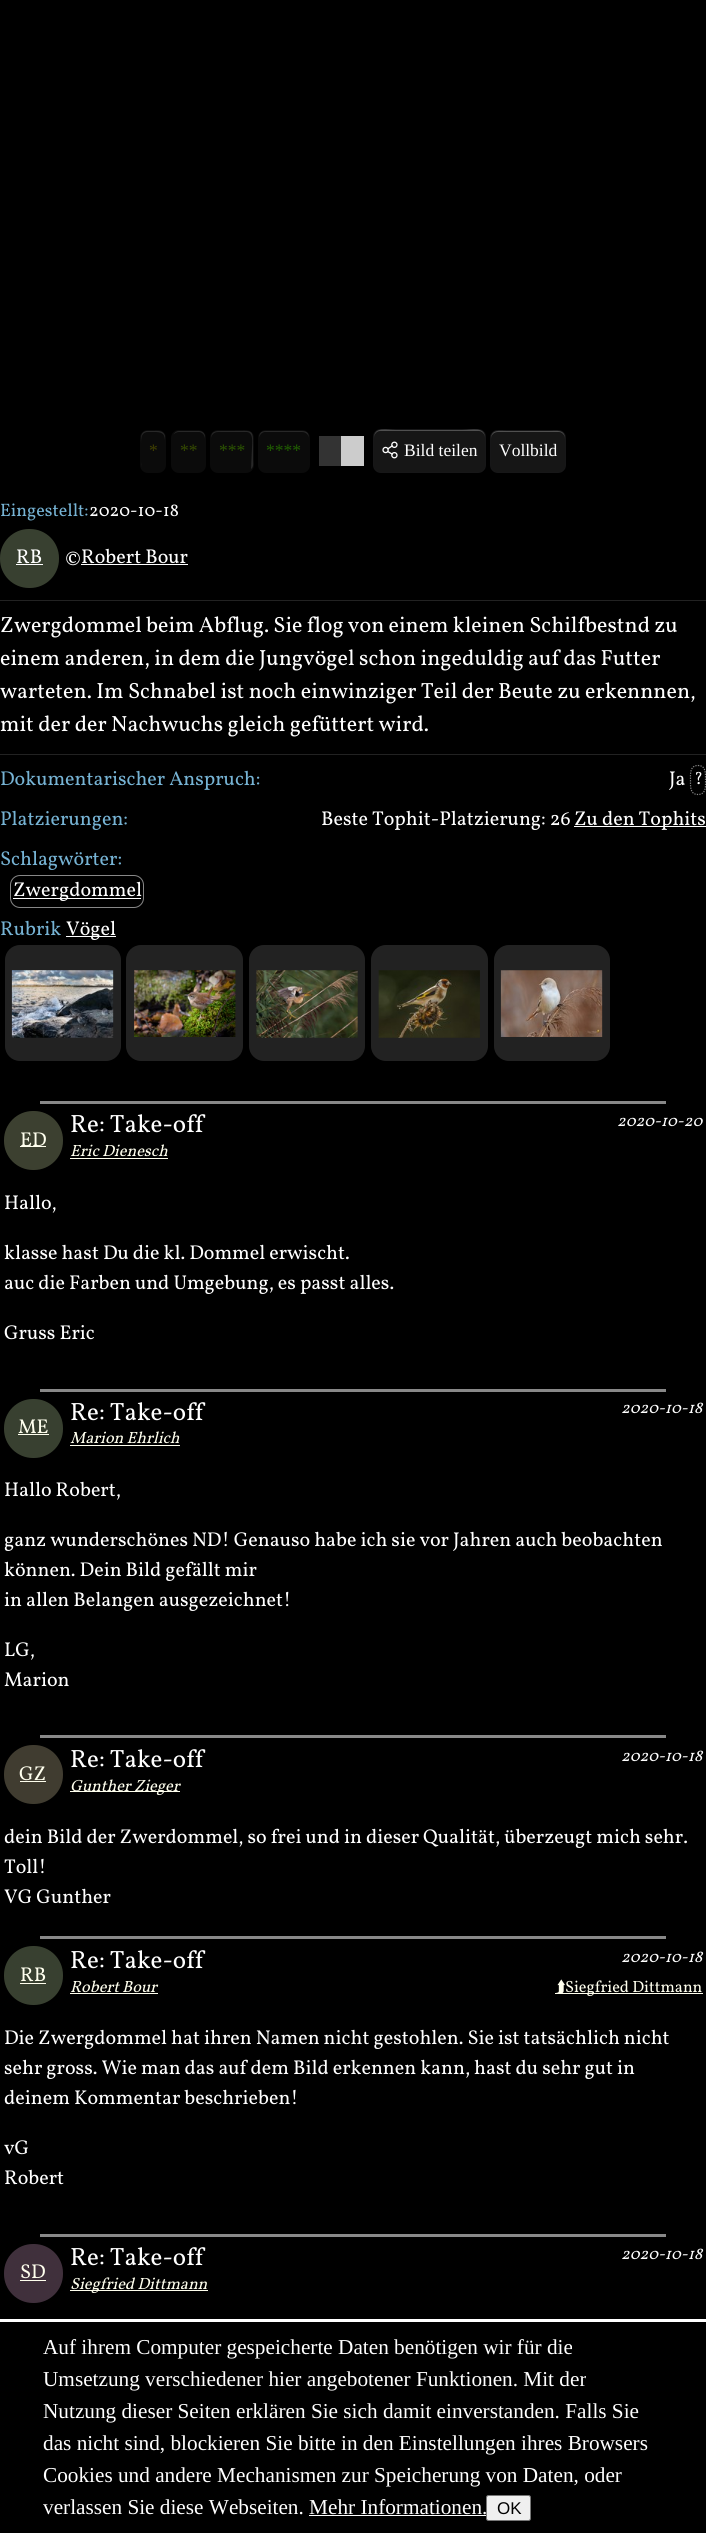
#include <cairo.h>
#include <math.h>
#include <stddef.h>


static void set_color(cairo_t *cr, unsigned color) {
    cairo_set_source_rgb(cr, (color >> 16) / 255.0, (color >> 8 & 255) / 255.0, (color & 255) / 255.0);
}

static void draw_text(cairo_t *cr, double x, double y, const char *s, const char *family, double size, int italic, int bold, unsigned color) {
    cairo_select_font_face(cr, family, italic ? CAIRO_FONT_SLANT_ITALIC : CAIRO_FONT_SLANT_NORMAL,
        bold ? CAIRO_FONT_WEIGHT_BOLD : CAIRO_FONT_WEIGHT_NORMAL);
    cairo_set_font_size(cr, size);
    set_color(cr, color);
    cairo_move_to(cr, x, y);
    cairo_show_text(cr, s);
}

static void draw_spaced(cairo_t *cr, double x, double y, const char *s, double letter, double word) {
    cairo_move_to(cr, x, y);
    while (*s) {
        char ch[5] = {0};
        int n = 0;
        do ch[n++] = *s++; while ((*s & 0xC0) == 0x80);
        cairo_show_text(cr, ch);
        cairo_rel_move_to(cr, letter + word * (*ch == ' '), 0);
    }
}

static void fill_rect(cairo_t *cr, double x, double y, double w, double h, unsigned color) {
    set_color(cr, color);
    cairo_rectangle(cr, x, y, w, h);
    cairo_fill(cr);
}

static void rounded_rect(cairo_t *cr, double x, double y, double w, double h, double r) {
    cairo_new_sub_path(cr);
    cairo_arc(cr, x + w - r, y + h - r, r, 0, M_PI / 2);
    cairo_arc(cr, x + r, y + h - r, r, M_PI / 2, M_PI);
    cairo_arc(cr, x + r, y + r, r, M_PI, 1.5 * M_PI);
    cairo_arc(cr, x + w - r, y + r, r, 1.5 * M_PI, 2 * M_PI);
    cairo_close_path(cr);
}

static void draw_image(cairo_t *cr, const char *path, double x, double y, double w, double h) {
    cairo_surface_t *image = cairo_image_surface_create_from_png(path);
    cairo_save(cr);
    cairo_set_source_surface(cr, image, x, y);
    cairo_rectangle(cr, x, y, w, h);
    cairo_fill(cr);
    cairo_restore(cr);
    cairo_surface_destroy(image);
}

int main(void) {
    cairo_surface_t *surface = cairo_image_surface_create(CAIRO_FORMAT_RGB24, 706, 2533);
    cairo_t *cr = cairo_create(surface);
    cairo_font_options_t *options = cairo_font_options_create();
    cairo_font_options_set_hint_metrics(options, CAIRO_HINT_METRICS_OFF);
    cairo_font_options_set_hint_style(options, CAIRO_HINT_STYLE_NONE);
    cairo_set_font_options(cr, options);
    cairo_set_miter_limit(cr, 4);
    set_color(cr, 0x000000);
    cairo_paint(cr);
    set_color(cr, 0x0B0B0B);
    rounded_rect(cr, 140, 430, 26, 43, 8);
    cairo_fill(cr);
    set_color(cr, 0x282828);
    cairo_set_fill_rule(cr, CAIRO_FILL_RULE_EVEN_ODD);
    cairo_new_path(cr);
    cairo_move_to(cr, 148, 432);
    cairo_line_to(cr, 156.5, 432);
    cairo_curve_to(cr, 162.5, 432.5, 164.5, 434, 165, 440);
    cairo_line_to(cr, 165, 436);
    cairo_curve_to(cr, 163.5, 430, 157.5, 431, 153, 431);
    cairo_line_to(cr, 146, 431);
    cairo_curve_to(cr, 140, 432.5, 141, 438.5, 141, 443);
    cairo_curve_to(cr, 141, 439, 141, 432, 148, 432);
    cairo_close_path(cr);
    cairo_move_to(cr, 165, 464);
    cairo_line_to(cr, 165, 466.5);
    cairo_close_path(cr);
    cairo_move_to(cr, 141.5, 467.5);
    cairo_line_to(cr, 141, 462);
    cairo_curve_to(cr, 141, 464, 141, 465.5, 141.5, 467.5);
    cairo_close_path(cr);
    cairo_fill(cr);
    draw_text(cr, 149, 456, "*", "Liberation Serif", 17.5, 0, 0, 0x404000);
    set_color(cr, 0x0B0B0B);
    rounded_rect(cr, 171, 430, 35, 43, 8);
    cairo_fill(cr);
    set_color(cr, 0x282828);
    cairo_set_fill_rule(cr, CAIRO_FILL_RULE_WINDING);
    cairo_new_path(cr);
    cairo_move_to(cr, 179, 432);
    cairo_line_to(cr, 199, 432);
    cairo_curve_to(cr, 202, 432, 205, 435, 205, 439);
    cairo_line_to(cr, 205, 437);
    cairo_curve_to(cr, 205, 433.5, 202.5, 431, 199, 431);
    cairo_line_to(cr, 179, 431);
    cairo_curve_to(cr, 176.5, 431, 174.5, 432.5, 173.5, 434.5);
    cairo_curve_to(cr, 175, 433, 176.5, 432, 179, 432);
    cairo_close_path(cr);
    cairo_fill(cr);
    draw_text(cr, 180, 456, "**", "Liberation Serif", 17.5, 0, 0, 0x354B00);
    set_color(cr, 0x0B0B0B);
    rounded_rect(cr, 210, 430, 44, 43, 8);
    cairo_fill(cr);
    set_color(cr, 0x282828);
    cairo_new_path(cr);
    cairo_move_to(cr, 218, 432);
    cairo_line_to(cr, 247, 432);
    cairo_curve_to(cr, 254, 433, 252, 444, 252, 448);
    cairo_line_to(cr, 251, 469);
    cairo_curve_to(cr, 254, 467, 253, 463, 253, 460);
    cairo_line_to(cr, 253, 451);
    cairo_curve_to(cr, 253, 428, 255, 431, 232, 431);
    cairo_line_to(cr, 222, 431);
    cairo_curve_to(cr, 215, 431, 211, 431, 211, 439);
    cairo_curve_to(cr, 211, 435, 214, 432, 218, 432);
    cairo_close_path(cr);
    cairo_fill(cr);
    draw_text(cr, 219, 456, "***", "Liberation Serif", 17.5, 0, 0, 0x2B5500);
    set_color(cr, 0x0B0B0B);
    rounded_rect(cr, 258, 430, 52, 43, 8);
    cairo_fill(cr);
    set_color(cr, 0x282828);
    cairo_new_path(cr);
    cairo_move_to(cr, 265, 432);
    cairo_line_to(cr, 302, 432);
    cairo_curve_to(cr, 306, 432, 309, 435, 309, 439);
    cairo_curve_to(cr, 309, 430, 304, 431, 297, 431);
    cairo_line_to(cr, 271, 431);
    cairo_curve_to(cr, 264, 431, 259, 430, 259, 439);
    cairo_curve_to(cr, 259, 435, 262, 432, 265, 432);
    cairo_close_path(cr);
    cairo_fill(cr);
    draw_text(cr, 266, 456, "****", "Liberation Serif", 17.5, 0, 0, 0x206000);
    fill_rect(cr, 319, 436, 22, 30, 0x333333);
    fill_rect(cr, 341, 436, 23, 30, 0xCCCCCC);
    set_color(cr, 0x161616);
    rounded_rect(cr, 373, 429, 113, 44, 8);
    cairo_fill(cr);
    set_color(cr, 0x505050);
    cairo_new_path(cr);
    cairo_move_to(cr, 380, 431);
    cairo_line_to(cr, 479, 431);
    cairo_curve_to(cr, 482, 431, 485, 434, 485, 438);
    cairo_curve_to(cr, 485, 426, 472, 430, 462, 430);
    cairo_line_to(cr, 396, 430);
    cairo_curve_to(cr, 387, 430, 374, 426, 374, 438);
    cairo_curve_to(cr, 374, 434, 377, 431, 380, 431);
    cairo_close_path(cr);
    cairo_fill(cr);
    rounded_rect(cr, 373.5, 429.5, 112, 43, 7.5);
    cairo_set_source_rgba(cr, 0.106, 0.122, 0.137, 0.15);
    cairo_set_line_width(cr, 1);
    cairo_stroke(cr);
    draw_image(cr, "assets/img1.png", 382, 441, 16, 18);
    draw_text(cr, 404, 456, "Bild teilen", "Liberation Serif", 17.5, 0, 0, 0xFFFFFF);
    set_color(cr, 0x161616);
    rounded_rect(cr, 490, 430, 76, 43, 8);
    cairo_fill(cr);
    set_color(cr, 0x505050);
    cairo_new_path(cr);
    cairo_move_to(cr, 498, 432);
    cairo_line_to(cr, 559, 432);
    cairo_curve_to(cr, 562, 432, 565, 435, 565, 439);
    cairo_curve_to(cr, 565, 429, 557, 431, 549, 431);
    cairo_line_to(cr, 507, 431);
    cairo_curve_to(cr, 499, 431, 491, 429, 491, 439);
    cairo_curve_to(cr, 491, 435, 494, 432, 498, 432);
    cairo_close_path(cr);
    cairo_fill(cr);
    rounded_rect(cr, 490.5, 430.5, 75, 42, 7.5);
    cairo_set_source_rgba(cr, 0.106, 0.122, 0.137, 0.15);
    cairo_stroke(cr);
    draw_text(cr, 499, 456, "Vollbild", "Liberation Serif", 17.5, 0, 0, 0xFFFFFF);
    draw_text(cr, 0, 516, "Eingestellt:", "Vollkorn", 18, 0, 0, 0x76B3D4);
    draw_text(cr, 89, 516, "2020-10-18", "Vollkorn", 18, 0, 0, 0xFFFFFF);
    set_color(cr, 0x384030);
    rounded_rect(cr, 0, 529, 59, 59, 29);
    cairo_fill(cr);
    draw_text(cr, 16, 563, "RB", "Vollkorn", 20, 0, 0, 0xFFFFFF);
    fill_rect(cr, 16, 564, 27, 1, 0xFFFFFF);
    draw_text(cr, 65, 563, "©Robert Bour", "Vollkorn", 20, 0, 0, 0xFFFFFF);
    fill_rect(cr, 81, 564, 107, 1, 0xFFFFFF);
    fill_rect(cr, 0, 600, 706, 1, 0x222222);
    fill_rect(cr, 0, 754, 706, 1, 0x222222);
    cairo_set_font_size(cr, 22);
    set_color(cr, 0xFFFFFF);
    draw_spaced(cr, 0, 632, "Zwergdommel beim Abflug. Sie flog von einem kleinen Schilfbestnd zu", 0, -0.25);
    draw_text(cr, 0, 665, "einem anderen, in dem die Jungvögel schon ingeduldig auf das Futter", "Vollkorn", 22, 0, 0, 0xFFFFFF);
    draw_text(cr, 0, 698, "warteten. Im Schnabel ist noch einwinziger Teil der Beute zu erkennnen,", "Vollkorn", 22, 0, 0, 0xFFFFFF);
    draw_text(cr, 0, 731, "mit der der Nachwuchs gleich gefüttert wird.", "Vollkorn", 22, 0, 0, 0xFFFFFF);
    draw_text(cr, 0, 785, "Dokumentarischer Anspruch:", "Vollkorn", 20, 0, 0, 0x76B3D4);
    draw_text(cr, 669, 785, "Ja", "Vollkorn", 20, 0, 0, 0xFFFFFF);
    cairo_new_path(cr);
    cairo_move_to(cr, 698, 765.5);
    cairo_curve_to(cr, 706.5, 765.5, 705.5, 774.5, 705.5, 780);
    cairo_curve_to(cr, 705.5, 785.5, 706.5, 794.5, 698, 794.5);
    cairo_curve_to(cr, 689.5, 794.5, 690.5, 785.5, 690.5, 780);
    cairo_curve_to(cr, 690.5, 774.5, 689.5, 765.5, 698, 765.5);
    cairo_close_path(cr);
    set_color(cr, 0x888888);
    cairo_set_line_width(cr, 1.2);
    cairo_set_dash(cr, (double[]){1.25, 1.25}, 2, 0);
    cairo_stroke(cr);
    draw_text(cr, 694, 784, "?", "Vollkorn", 17, 0, 0, 0xFFFFFF);
    draw_text(cr, 0, 825, "Platzierungen:", "Vollkorn", 20, 0, 0, 0x76B3D4);
    draw_text(cr, 321, 825, "Beste Tophit-Platzierung: 26", "Vollkorn", 20, 0, 0, 0xFFFFFF);
    fill_rect(cr, 574, 826, 132, 1, 0xFFFFFF);
    draw_text(cr, 574, 825, "Zu den Tophits", "Vollkorn", 20, 0, 0, 0xFFFFFF);
    draw_text(cr, 0, 865, "Schlagwörter:", "Vollkorn", 20, 0, 0, 0x76B3D4);
    rounded_rect(cr, 10.5, 875.5, 133, 32, 9.5);
    set_color(cr, 0x888888);
    cairo_set_line_width(cr, 1);
    cairo_set_dash(cr, NULL, 0, 0);
    cairo_stroke(cr);
    fill_rect(cr, 13, 898, 128, 1, 0xFFFFFF);
    draw_text(cr, 13, 896, "Zwergdommel", "Vollkorn", 20, 0, 0, 0xFFFFFF);
    draw_text(cr, 0, 935, "Rubrik", "Vollkorn", 20, 0, 0, 0x76B3D4);
    fill_rect(cr, 66, 936, 50, 1, 0xFFFFFF);
    draw_text(cr, 66, 935, "Vögel", "Vollkorn", 20, 0, 0, 0xFFFFFF);
    set_color(cr, 0x222222);
    rounded_rect(cr, 5, 945, 116, 116, 15);
    cairo_fill(cr);
    draw_image(cr, "assets/img2.png", 11, 970, 103, 68);
    rounded_rect(cr, 126, 945, 117, 116, 15);
    cairo_fill(cr);
    draw_image(cr, "assets/img3.png", 134, 970, 102, 67);
    rounded_rect(cr, 249, 945, 116, 116, 15);
    cairo_fill(cr);
    draw_image(cr, "assets/img4.png", 256, 970, 102, 68);
    rounded_rect(cr, 371, 945, 117, 116, 15);
    cairo_fill(cr);
    draw_image(cr, "assets/img5.png", 378, 970, 102, 68);
    rounded_rect(cr, 494, 945, 116, 116, 15);
    cairo_fill(cr);
    draw_image(cr, "assets/img6.png", 500, 970, 103, 67);
    fill_rect(cr, 40, 1101, 626, 3, 0x888888);
    draw_text(cr, 70, 1132, "Re: Take-off", "Vollkorn", 25, 0, 0, 0xFFFFFF);
    set_color(cr, 0x3C4030);
    rounded_rect(cr, 4, 1111, 59, 59, 29);
    cairo_fill(cr);
    fill_rect(cr, 20, 1146, 26, 1, 0xFFFFEE);
    draw_text(cr, 20, 1146, "ED", "Vollkorn", 20, 0, 0, 0xFFFFEE);
    draw_text(cr, 617, 1126, "2020-10-20", "Vollkorn", 16.25, 1, 0, 0xFFFFFF);
    draw_text(cr, 70, 1156, "Eric Dienesch", "Vollkorn", 16.25, 1, 0, 0xFFFFEE);
    fill_rect(cr, 70, 1158, 98, 1, 0xFFFFEE);
    draw_text(cr, 4, 1209, "Hallo,", "Vollkorn", 20, 0, 0, 0xFFFFFF);
    draw_text(cr, 4, 1259, "klasse hast Du die kl. Dommel erwischt.", "Vollkorn", 20, 0, 0, 0xFFFFFF);
    draw_text(cr, 4, 1289, "auc die Farben und Umgebung, es passt alles.", "Vollkorn", 20, 0, 0, 0xFFFFFF);
    draw_text(cr, 4, 1339, "Gruss Eric", "Vollkorn", 20, 0, 0, 0xFFFFFF);
    fill_rect(cr, 40, 1389, 626, 3, 0x888888);
    draw_text(cr, 621, 1413, "2020-10-18", "Vollkorn", 16.25, 1, 0, 0xFFFFFF);
    draw_text(cr, 70, 1443, "Marion Ehrlich", "Vollkorn", 16.25, 1, 0, 0xFFFFEE);
    fill_rect(cr, 70, 1445, 110, 1, 0xFFFFEE);
    draw_text(cr, 70, 1420, "Re: Take-off", "Vollkorn", 25, 0, 0, 0xFFFFFF);
    set_color(cr, 0x384030);
    rounded_rect(cr, 4, 1399, 59, 59, 29);
    cairo_fill(cr);
    draw_text(cr, 18, 1433, "ME", "Vollkorn", 20, 0, 0, 0xFFFFEE);
    fill_rect(cr, 18, 1434, 31, 1, 0xFFFFEE);
    draw_text(cr, 4, 1496, "Hallo Robert,", "Vollkorn", 20, 0, 0, 0xFFFFFF);
    draw_text(cr, 4, 1546, "ganz wunderschönes ND! Genauso habe ich sie vor Jahren auch beobachten", "Vollkorn", 20, 0, 0, 0xFFFFFF);
    draw_text(cr, 4, 1576, "können. Dein Bild gefällt mir", "Vollkorn", 20, 0, 0, 0xFFFFFF);
    draw_text(cr, 4, 1606, "in allen Belangen ausgezeichnet!", "Vollkorn", 20, 0, 0, 0xFFFFFF);
    draw_text(cr, 4, 1656, "LG,", "Vollkorn", 20, 0, 0, 0xFFFFFF);
    draw_text(cr, 4, 1686, "Marion", "Vollkorn", 20, 0, 0, 0xFFFFFF);
    fill_rect(cr, 40, 1735, 626, 3, 0x888888);
    draw_text(cr, 70, 1767, "Re: Take-off", "Vollkorn", 25, 0, 0, 0xFFFFFF);
    set_color(cr, 0x403C30);
    rounded_rect(cr, 4, 1745, 59, 59, 29);
    cairo_fill(cr);
    draw_text(cr, 19, 1780, "GZ", "Vollkorn", 20, 0, 0, 0xFFFFEE);
    fill_rect(cr, 20, 1781, 26, 1, 0xFFFFEE);
    draw_text(cr, 621, 1761, "2020-10-18", "Vollkorn", 16.25, 1, 0, 0xFFFFFF);
    fill_rect(cr, 70, 1791, 110, 1, 0xFFFFEE);
    draw_text(cr, 70, 1791, "Gunther Zieger", "Vollkorn", 16.25, 1, 0, 0xFFFFEE);
    draw_text(cr, 4, 1843, "dein Bild der Zwerdommel, so frei und in dieser Qualität, überzeugt mich sehr.", "Vollkorn", 20, 0, 0, 0xFFFFFF);
    draw_text(cr, 4, 1873, "Toll!", "Vollkorn", 20, 0, 0, 0xFFFFFF);
    draw_text(cr, 4, 1903, "VG Gunther", "Vollkorn", 20, 0, 0, 0xFFFFFF);
    fill_rect(cr, 40, 1936, 626, 3, 0x888888);
    draw_text(cr, 70, 1968, "Re: Take-off", "Vollkorn", 25, 0, 0, 0xFFFFFF);
    set_color(cr, 0x384030);
    rounded_rect(cr, 4, 1946, 59, 59, 29);
    cairo_fill(cr);
    draw_text(cr, 20, 1981, "RB", "Vollkorn", 20, 0, 0, 0xFFFFEE);
    fill_rect(cr, 20, 1983, 26, 1, 0xFFFFEE);
    draw_text(cr, 621, 1962, "2020-10-18", "Vollkorn", 16.25, 1, 0, 0xFFFFFF);
    draw_text(cr, 70, 1992, "Robert Bour", "Vollkorn", 16.25, 1, 0, 0xFFFFEE);
    fill_rect(cr, 70, 1993, 88, 1, 0xFFFFEE);
    fill_rect(cr, 555, 1993, 148, 1, 0xFFFFEE);
    draw_text(cr, 556, 1992, "⮭", "FreeSans", 16.25, 0, 0, 0xFFFFEE);
    draw_text(cr, 565, 1992, "Siegfried Dittmann", "Vollkorn", 16.25, 0, 0, 0xFFFFEE);
    draw_text(cr, 4, 2044, "Die Zwergdommel hat ihren Namen nicht gestohlen. Sie ist tatsächlich nicht", "Vollkorn", 20, 0, 0, 0xFFFFFF);
    draw_text(cr, 4, 2074, "sehr gross. Wie man das auf dem Bild erkennen kann, hast du sehr gut in", "Vollkorn", 20, 0, 0, 0xFFFFFF);
    draw_text(cr, 4, 2104, "deinem Kommentar beschrieben!", "Vollkorn", 20, 0, 0, 0xFFFFFF);
    draw_text(cr, 4, 2154, "vG", "Vollkorn", 20, 0, 0, 0xFFFFFF);
    draw_text(cr, 4, 2184, "Robert", "Vollkorn", 20, 0, 0, 0xFFFFFF);
    fill_rect(cr, 40, 2234, 626, 3, 0x888888);
    draw_text(cr, 70, 2265, "Re: Take-off", "Vollkorn", 25, 0, 0, 0xFFFFFF);
    set_color(cr, 0x40303C);
    rounded_rect(cr, 4, 2244, 59, 59, 29);
    cairo_fill(cr);
    draw_text(cr, 20, 2278, "SD", "Vollkorn", 20, 0, 0, 0xFFFFEE);
    fill_rect(cr, 20, 2280, 26, 1, 0xFFFFEE);
    draw_text(cr, 621, 2259, "2020-10-18", "Vollkorn", 16.25, 1, 0, 0xFFFFFF);
    fill_rect(cr, 70, 2290, 138, 1, 0xFFFFEE);
    draw_text(cr, 70, 2289, "Siegfried Dittmann", "Vollkorn", 16.25, 1, 0, 0xFFFFEE);
    fill_rect(cr, 0, 2319, 706, 3, 0xFFFFFF);
    draw_text(cr, 43, 2354, "Auf ihrem Computer gespeicherte Daten benötigen wir für die", "Liberation Serif", 21.25, 0, 0, 0xFFFFFF);
    draw_text(cr, 43, 2386, "Umsetzung verschiedener hier angebotener Funktionen. Mit der", "Liberation Serif", 21.25, 0, 0, 0xFFFFFF);
    draw_text(cr, 43, 2418, "Nutzung dieser Seiten erklären Sie sich damit einverstanden. Falls Sie", "Liberation Serif", 21.25, 0, 0, 0xFFFFFF);
    draw_text(cr, 43, 2450, "das nicht sind, blockieren Sie bitte in den Einstellungen ihres Browsers", "Liberation Serif", 21.25, 0, 0, 0xFFFFFF);
    draw_text(cr, 43, 2482, "Cookies und andere Mechanismen zur Speicherung von Daten, oder", "Liberation Serif", 21.25, 0, 0, 0xFFFFFF);
    draw_text(cr, 43, 2514, "verlassen Sie diese Webseiten. Mehr Informationen.", "Liberation Serif", 21.25, 0, 0, 0xFFFFFF);
    set_color(cr, 0xEFEFEF);
    rounded_rect(cr, 486.5, 2495.5, 44, 25, 2);
    cairo_fill_preserve(cr);
    set_color(cr, 0x767676);
    cairo_stroke(cr);
    draw_text(cr, 497, 2514, "OK", "Liberation Sans", 17, 0, 0, 0x000000);
    fill_rect(cr, 309, 2515, 177, 1, 0xFFFFFF);
    cairo_surface_write_to_png(surface, "output.png");
    cairo_font_options_destroy(options);
    cairo_destroy(cr);
    cairo_surface_destroy(surface);
    return 0;
}
